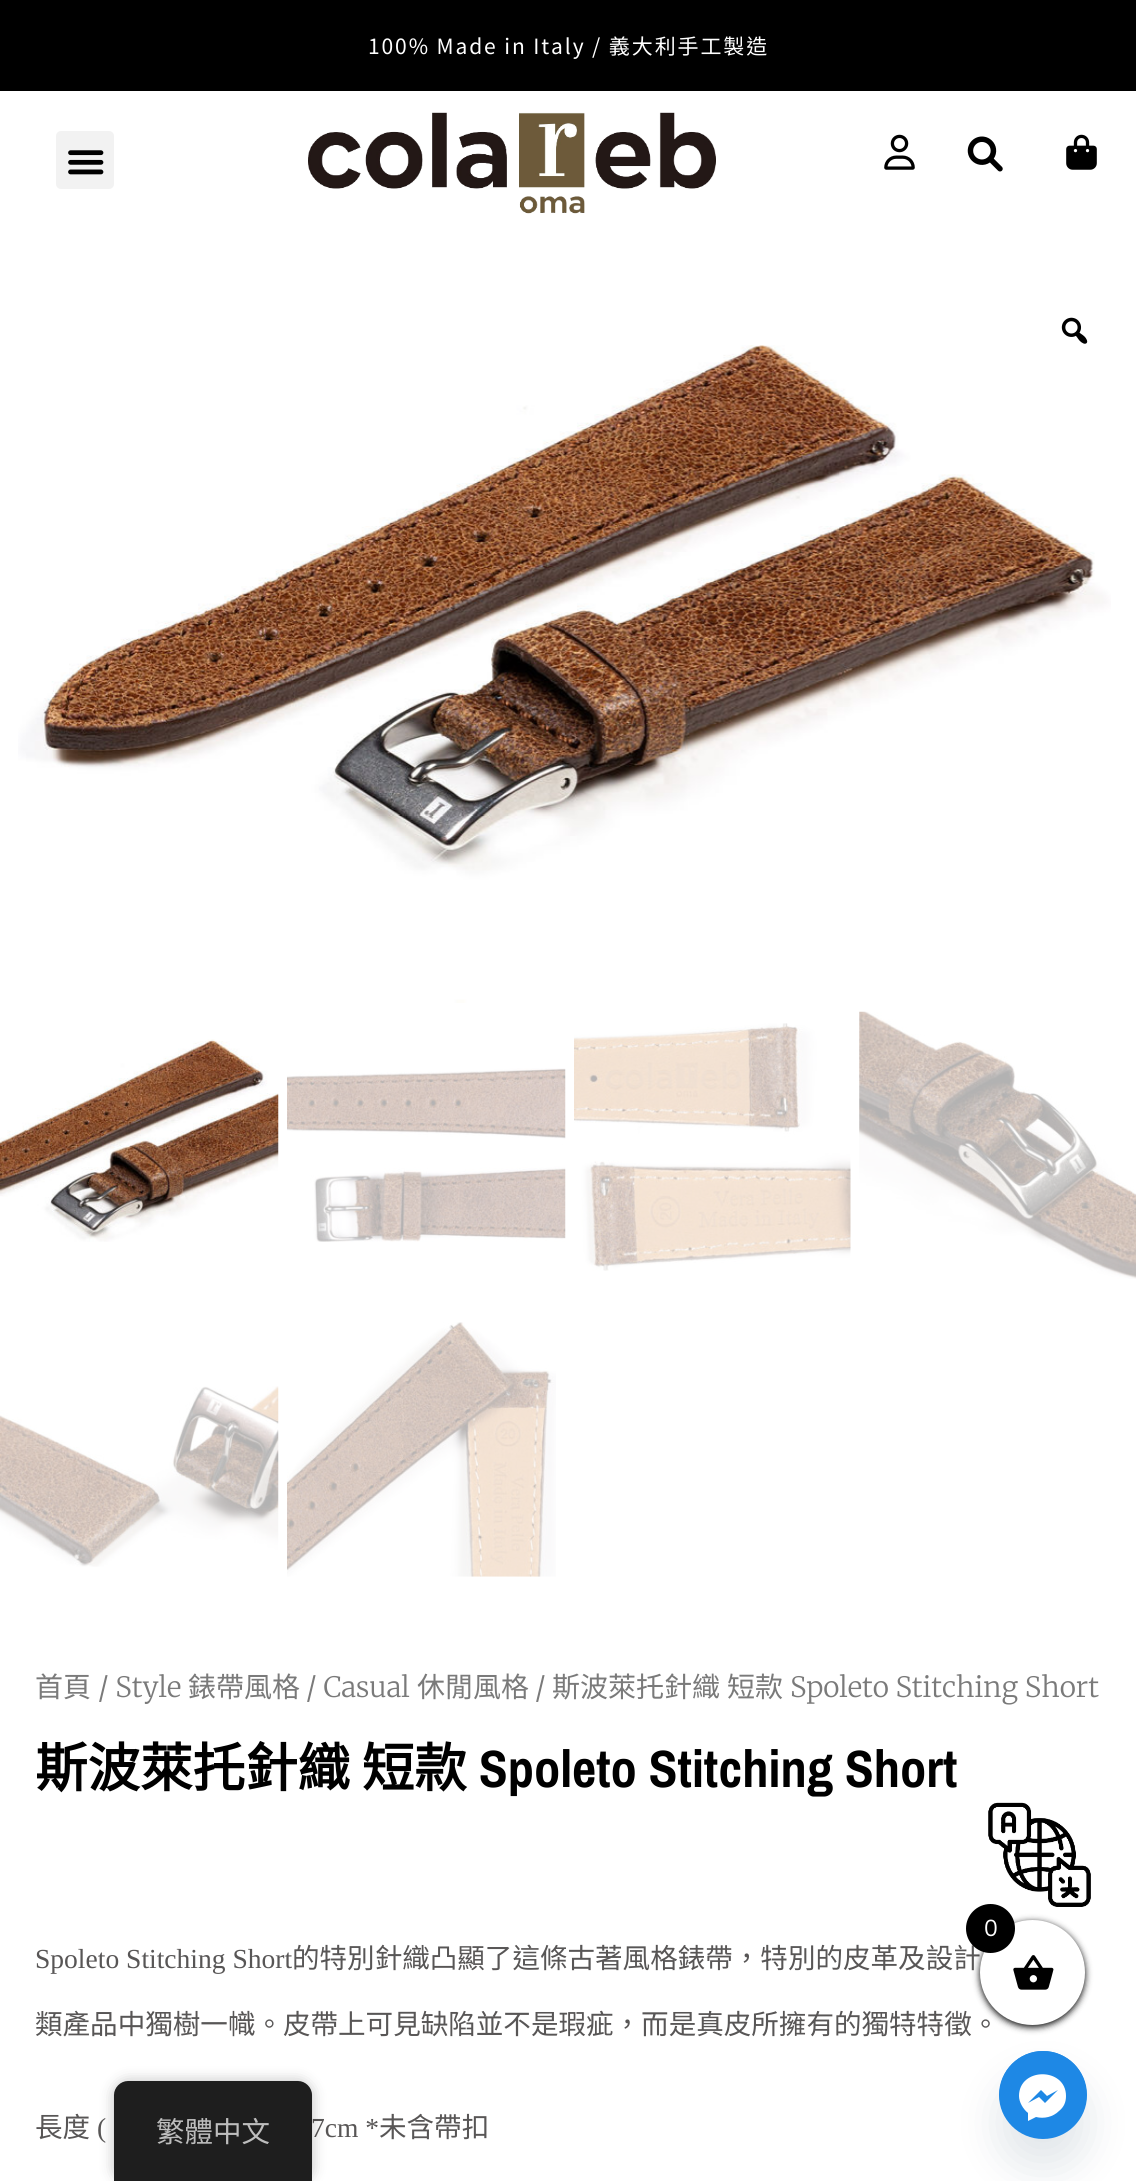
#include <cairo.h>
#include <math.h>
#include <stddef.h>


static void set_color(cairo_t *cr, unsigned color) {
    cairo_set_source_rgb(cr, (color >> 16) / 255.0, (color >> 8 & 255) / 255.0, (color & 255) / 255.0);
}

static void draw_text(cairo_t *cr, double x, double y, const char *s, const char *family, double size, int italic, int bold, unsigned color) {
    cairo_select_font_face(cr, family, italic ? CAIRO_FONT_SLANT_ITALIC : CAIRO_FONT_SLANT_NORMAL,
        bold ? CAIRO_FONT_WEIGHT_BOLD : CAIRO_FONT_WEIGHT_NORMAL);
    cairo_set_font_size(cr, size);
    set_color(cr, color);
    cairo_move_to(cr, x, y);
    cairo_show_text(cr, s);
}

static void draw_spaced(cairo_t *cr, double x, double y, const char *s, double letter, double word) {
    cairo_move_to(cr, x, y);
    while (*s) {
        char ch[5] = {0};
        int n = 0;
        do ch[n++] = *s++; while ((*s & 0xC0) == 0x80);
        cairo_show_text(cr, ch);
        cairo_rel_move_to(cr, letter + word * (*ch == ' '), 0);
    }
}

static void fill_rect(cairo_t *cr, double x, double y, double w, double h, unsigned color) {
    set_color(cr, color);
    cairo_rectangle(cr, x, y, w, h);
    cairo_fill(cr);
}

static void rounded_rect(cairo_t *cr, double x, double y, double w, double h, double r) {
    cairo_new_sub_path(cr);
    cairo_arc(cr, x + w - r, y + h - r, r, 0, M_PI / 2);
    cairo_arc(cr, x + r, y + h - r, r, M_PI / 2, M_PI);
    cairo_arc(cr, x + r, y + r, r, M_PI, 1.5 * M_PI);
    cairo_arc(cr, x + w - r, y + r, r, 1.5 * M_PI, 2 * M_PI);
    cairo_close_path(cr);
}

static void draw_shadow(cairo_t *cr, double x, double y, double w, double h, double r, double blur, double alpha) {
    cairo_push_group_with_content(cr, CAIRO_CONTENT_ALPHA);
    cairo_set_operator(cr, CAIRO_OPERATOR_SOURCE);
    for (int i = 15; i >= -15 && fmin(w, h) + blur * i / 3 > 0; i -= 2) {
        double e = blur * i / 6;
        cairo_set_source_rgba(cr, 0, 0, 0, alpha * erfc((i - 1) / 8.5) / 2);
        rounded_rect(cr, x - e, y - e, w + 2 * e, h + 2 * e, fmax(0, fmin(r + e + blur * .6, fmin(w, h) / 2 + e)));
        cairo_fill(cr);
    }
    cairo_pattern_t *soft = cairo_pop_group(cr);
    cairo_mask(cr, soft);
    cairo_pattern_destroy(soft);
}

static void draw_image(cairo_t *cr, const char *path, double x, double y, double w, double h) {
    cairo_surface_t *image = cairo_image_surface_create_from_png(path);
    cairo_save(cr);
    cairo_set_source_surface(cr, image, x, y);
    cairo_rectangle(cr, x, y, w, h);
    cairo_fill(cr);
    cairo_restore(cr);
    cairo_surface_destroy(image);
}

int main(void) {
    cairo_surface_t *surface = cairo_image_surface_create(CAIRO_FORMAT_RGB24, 1136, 2181);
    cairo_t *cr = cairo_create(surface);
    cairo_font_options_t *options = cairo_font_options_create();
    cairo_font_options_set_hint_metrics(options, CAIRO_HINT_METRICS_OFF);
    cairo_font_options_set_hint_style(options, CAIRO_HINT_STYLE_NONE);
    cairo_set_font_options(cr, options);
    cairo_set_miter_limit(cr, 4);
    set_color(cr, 0xFFFFFF);
    cairo_paint(cr);
    fill_rect(cr, 0, 0, 1136, 91, 0x000000);
    cairo_select_font_face(cr, "Noto Sans TC", CAIRO_FONT_SLANT_NORMAL, CAIRO_FONT_WEIGHT_NORMAL);
    cairo_set_font_size(cr, 21);
    set_color(cr, 0xFFFFFF);
    draw_spaced(cr, 368, 54, "100% Made in Italy / 義大利手工製造", 1.9, 0);
    set_color(cr, 0xF2F2F2);
    rounded_rect(cr, 56, 131, 58, 58, 5);
    cairo_fill(cr);
    draw_image(cr, "assets/img1.png", 68, 150, 36, 25);
    draw_image(cr, "assets/img2.png", 308, 112, 408, 102);
    draw_image(cr, "assets/img3.png", 884, 134, 31, 36);
    draw_image(cr, "assets/img4.png", 967, 136, 36, 36);
    draw_image(cr, "assets/img5.png", 1066, 134, 31, 36);
    draw_image(cr, "assets/img6.png", 1061, 317, 27, 27);
    draw_image(cr, "assets/img7.png", 18, 345, 1093, 658);
    draw_image(cr, "assets/img8.png", 0, 1039, 279, 203);
    draw_image(cr, "assets/img9.png", 287, 1068, 279, 174);
    draw_image(cr, "assets/img10.png", 574, 1023, 277, 248);
    draw_image(cr, "assets/img11.png", 859, 1011, 277, 268);
    draw_image(cr, "assets/img12.png", 0, 1386, 279, 181);
    draw_image(cr, "assets/img13.png", 287, 1322, 269, 255);
    draw_text(cr, 35, 1697, "首頁", "Noto Sans CJK TC", 28, 0, 0, 0x7A7A7A);
    draw_text(cr, 98, 1697, "/ Style", "Merriweather Light", 28, 0, 0, 0x7A7A7A);
    draw_text(cr, 188, 1697, "錶帶風格", "Noto Sans CJK TC", 28, 0, 0, 0x7A7A7A);
    draw_text(cr, 306, 1697, "/ Casual", "Merriweather Light", 28, 0, 0, 0x7A7A7A);
    draw_text(cr, 417, 1697, "休閒風格", "Noto Sans CJK TC", 28, 0, 0, 0x7A7A7A);
    draw_text(cr, 535, 1697, "/", "Merriweather Light", 28, 0, 0, 0x7A7A7A);
    draw_text(cr, 552, 1697, "斯波萊托針織", "Noto Sans CJK TC", 28, 0, 0, 0x7A7A7A);
    draw_text(cr, 727, 1697, "短款", "Noto Sans CJK TC", 28, 0, 0, 0x7A7A7A);
    draw_text(cr, 790, 1697, "Spoleto Stitching Short", "Merriweather Light", 28, 0, 0, 0x7A7A7A);
    draw_text(cr, 35, 1787, "斯波萊托針織 短款", "Noto Sans CJK TC", 52.5, 0, 1, 0x000000);
    draw_text(cr, 479, 1787, "Spoleto Stitching Short", "Archivo Narrow", 52.5, 0, 1, 0x000000);
    draw_text(cr, 35, 1968, "Spoleto Stitching Short", "Liberation Serif", 27.55, 0, 0, 0x585656);
    draw_text(cr, 292, 1968, "的特別針織凸顯了這條古著風格錶帶，特別的皮革及設計", "Noto Sans CJK TC", 27.55, 0, 0, 0x585656);
    draw_text(cr, 35, 2034, "類產品中獨樹一幟。皮帶上可見缺陷並不是瑕疵，而是真皮所擁有的獨特特徵。", "Noto Sans CJK TC", 27.55, 0, 0, 0x585656);
    draw_text(cr, 35, 2137, "長度", "Noto Sans CJK TC", 27.55, 0, 0, 0x585656);
    draw_text(cr, 97, 2137, "(", "Liberation Serif", 27.55, 0, 0, 0x585656);
    draw_text(cr, 311, 2137, "7cm *", "Liberation Serif", 27.55, 0, 0, 0x585656);
    draw_text(cr, 379, 2137, "未含帶扣", "Noto Sans CJK TC", 27.55, 0, 0, 0x585656);
    draw_image(cr, "assets/img14.png", 988, 1802, 103, 105);
    set_color(cr, 0x000000);
    draw_shadow(cr, 980, 1922, 105, 105, 52.5, 3.5, 1);
    set_color(cr, 0x49687E);
    draw_shadow(cr, 999, 2079, 88, 88, 44, 21, 0.16);
    set_color(cr, 0xFFFFFF);
    cairo_arc(cr, 1032.5, 1972.5, 52.5, 0, 2 * M_PI);
    cairo_fill(cr);
    set_color(cr, 0x000000);
    cairo_arc(cr, 990.5, 1928.5, 24.5, 0, 2 * M_PI);
    cairo_fill(cr);
    draw_text(cr, 984, 1936, "0", "Nunito Sans", 23, 0, 0, 0xFFFFFF);
    draw_image(cr, "assets/img15.png", 1013, 1955, 41, 35);
    set_color(cr, 0x000000);
    draw_shadow(cr, 114, 2081, 198, 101, 14, 7, 0.25);
    set_color(cr, 0x1E1E1E);
    cairo_new_path(cr);
    cairo_move_to(cr, 128, 2081);
    cairo_line_to(cr, 298, 2081);
    cairo_curve_to(cr, 305.5, 2081, 312, 2087.5, 312, 2095);
    cairo_line_to(cr, 312, 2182);
    cairo_line_to(cr, 114, 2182);
    cairo_line_to(cr, 114, 2095);
    cairo_curve_to(cr, 114, 2087.5, 120.5, 2081, 128, 2081);
    cairo_close_path(cr);
    cairo_fill(cr);
    draw_text(cr, 156, 2142, "繁體中文", "Noto Sans CJK TC", 28.5, 0, 0, 0xBDBDBD);
    set_color(cr, 0x1E88E5);
    cairo_new_path(cr);
    cairo_arc(cr, 1043, 2095, 44, 0, 2 * M_PI);
    cairo_fill(cr);
    cairo_arc(cr, 1043, 2094.5, 43.5, 0, 2 * M_PI);
    cairo_fill(cr);
    set_color(cr, 0xFFFFFF);
    cairo_set_fill_rule(cr, CAIRO_FILL_RULE_EVEN_ODD);
    cairo_new_path(cr);
    cairo_move_to(cr, 1019, 2096);
    cairo_curve_to(cr, 1019, 2067, 1066, 2067, 1066, 2096);
    cairo_curve_to(cr, 1066, 2102, 1064, 2107, 1059, 2111);
    cairo_curve_to(cr, 1053, 2117, 1044, 2119, 1036, 2117);
    cairo_line_to(cr, 1028, 2121);
    cairo_line_to(cr, 1028, 2113);
    cairo_curve_to(cr, 1023, 2109, 1019, 2102, 1019, 2096);
    cairo_close_path(cr);
    cairo_move_to(cr, 1039, 2097);
    cairo_line_to(cr, 1045, 2103);
    cairo_line_to(cr, 1058, 2090);
    cairo_line_to(cr, 1047, 2096);
    cairo_line_to(cr, 1041, 2090);
    cairo_line_to(cr, 1028, 2103);
    cairo_close_path(cr);
    cairo_fill(cr);
    cairo_surface_write_to_png(surface, "output.png");
    cairo_font_options_destroy(options);
    cairo_destroy(cr);
    cairo_surface_destroy(surface);
    return 0;
}
